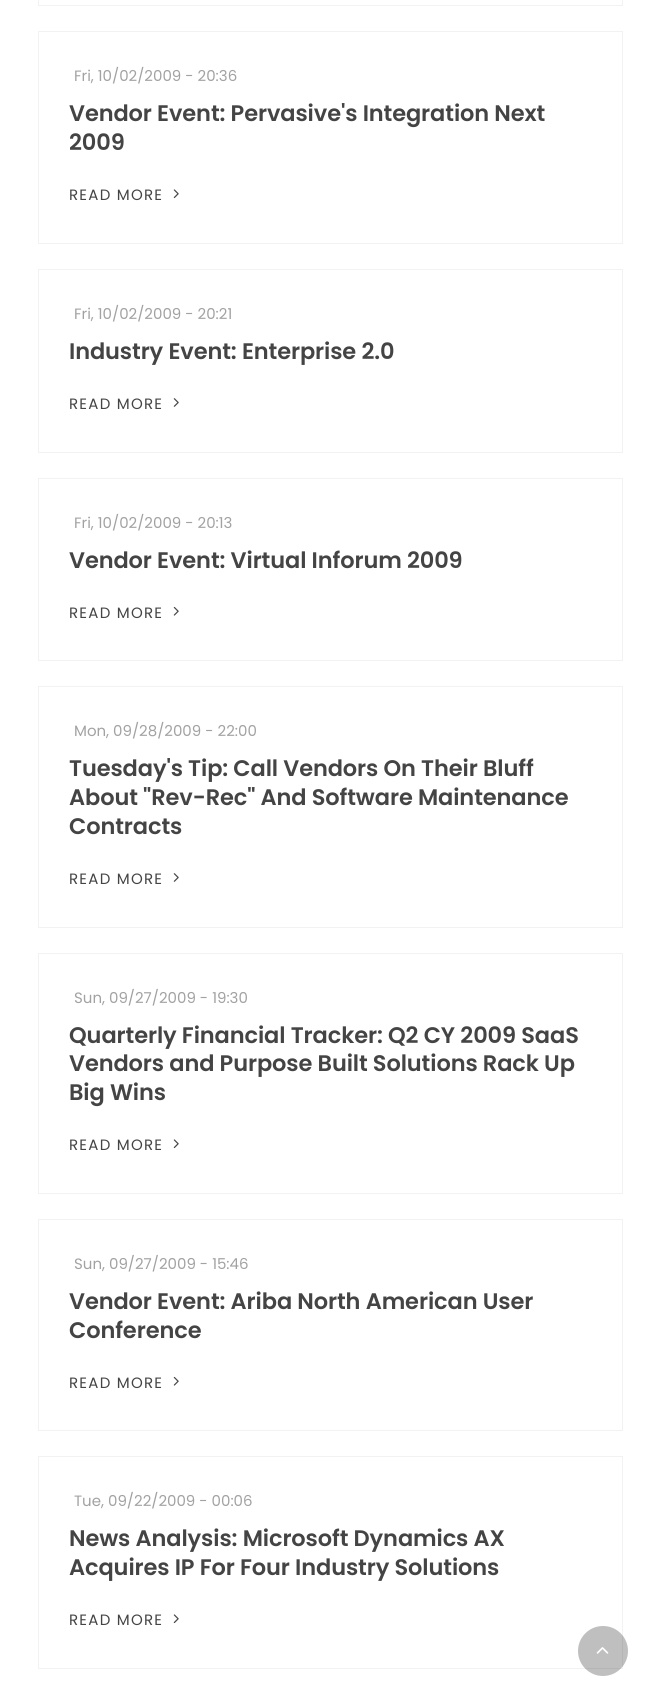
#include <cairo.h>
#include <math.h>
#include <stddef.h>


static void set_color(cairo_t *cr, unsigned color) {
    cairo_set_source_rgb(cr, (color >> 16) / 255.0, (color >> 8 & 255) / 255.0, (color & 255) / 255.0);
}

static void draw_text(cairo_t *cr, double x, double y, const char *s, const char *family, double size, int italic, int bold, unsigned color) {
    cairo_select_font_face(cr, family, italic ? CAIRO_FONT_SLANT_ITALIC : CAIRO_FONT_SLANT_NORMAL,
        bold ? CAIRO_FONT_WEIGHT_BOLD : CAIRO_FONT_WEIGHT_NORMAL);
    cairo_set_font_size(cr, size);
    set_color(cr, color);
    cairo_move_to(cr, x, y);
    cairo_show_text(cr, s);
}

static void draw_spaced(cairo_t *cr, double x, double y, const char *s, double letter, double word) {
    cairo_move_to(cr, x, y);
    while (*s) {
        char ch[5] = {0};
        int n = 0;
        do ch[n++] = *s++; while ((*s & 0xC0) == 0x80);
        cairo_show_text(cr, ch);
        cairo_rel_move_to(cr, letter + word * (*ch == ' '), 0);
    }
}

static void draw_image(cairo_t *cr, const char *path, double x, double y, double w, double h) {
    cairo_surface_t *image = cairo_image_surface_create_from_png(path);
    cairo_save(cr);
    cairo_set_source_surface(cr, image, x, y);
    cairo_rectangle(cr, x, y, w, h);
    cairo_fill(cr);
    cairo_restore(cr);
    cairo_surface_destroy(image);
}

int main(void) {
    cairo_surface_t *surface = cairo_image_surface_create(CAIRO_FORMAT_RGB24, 660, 1708);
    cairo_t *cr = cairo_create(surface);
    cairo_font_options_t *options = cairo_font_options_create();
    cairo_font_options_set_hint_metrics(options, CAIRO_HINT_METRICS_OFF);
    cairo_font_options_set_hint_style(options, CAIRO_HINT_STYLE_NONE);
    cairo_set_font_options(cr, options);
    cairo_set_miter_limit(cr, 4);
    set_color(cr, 0xFFFFFF);
    cairo_paint(cr);
    cairo_rectangle(cr, 38.5, -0.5, 584, 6);
    set_color(cr, 0xF2F2F2);
    cairo_set_line_width(cr, 1);
    cairo_stroke(cr);
    cairo_rectangle(cr, 38.5, 31.5, 584, 212);
    cairo_stroke(cr);
    draw_text(cr, 74, 81, "Fri, 10/02/2009 - 20:36", "Poppins", 15, 0, 0, 0xA2A2A2);
    cairo_select_font_face(cr, "Poppins SemiBold", CAIRO_FONT_SLANT_NORMAL, CAIRO_FONT_WEIGHT_NORMAL);
    cairo_set_font_size(cr, 22.5);
    set_color(cr, 0x444444);
    draw_spaced(cr, 69, 121, "Vendor Event: Pervasive's Integration Next", -0.1, 0);
    draw_spaced(cr, 69, 150, "2009", -0.1, 0);
    cairo_select_font_face(cr, "Poppins", CAIRO_FONT_SLANT_NORMAL, CAIRO_FONT_WEIGHT_NORMAL);
    cairo_set_font_size(cr, 15);
    draw_spaced(cr, 69, 200, "READ MORE", 1.25, 0);
    draw_image(cr, "assets/img1.png", 173, 189, 6, 10);
    cairo_rectangle(cr, 38.5, 269.5, 584, 183);
    set_color(cr, 0xF2F2F2);
    cairo_stroke(cr);
    draw_text(cr, 74, 319, "Fri, 10/02/2009 - 20:21", "Poppins", 15, 0, 0, 0xA2A2A2);
    cairo_select_font_face(cr, "Poppins SemiBold", CAIRO_FONT_SLANT_NORMAL, CAIRO_FONT_WEIGHT_NORMAL);
    cairo_set_font_size(cr, 22.5);
    set_color(cr, 0x444444);
    draw_spaced(cr, 69, 359, "Industry Event: Enterprise 2.0", -0.1, 0);
    cairo_select_font_face(cr, "Poppins", CAIRO_FONT_SLANT_NORMAL, CAIRO_FONT_WEIGHT_NORMAL);
    cairo_set_font_size(cr, 15);
    draw_spaced(cr, 69, 409, "READ MORE", 1.25, 0);
    draw_image(cr, "assets/img2.png", 173, 398, 6, 9);
    cairo_rectangle(cr, 38.5, 478.5, 584, 182);
    set_color(cr, 0xF2F2F2);
    cairo_stroke(cr);
    draw_text(cr, 74, 528, "Fri, 10/02/2009 - 20:13", "Poppins", 15, 0, 0, 0xA2A2A2);
    cairo_select_font_face(cr, "Poppins SemiBold", CAIRO_FONT_SLANT_NORMAL, CAIRO_FONT_WEIGHT_NORMAL);
    cairo_set_font_size(cr, 22.5);
    set_color(cr, 0x444444);
    draw_spaced(cr, 69, 568, "Vendor Event: Virtual Inforum 2009", -0.1, 0);
    cairo_select_font_face(cr, "Poppins", CAIRO_FONT_SLANT_NORMAL, CAIRO_FONT_WEIGHT_NORMAL);
    cairo_set_font_size(cr, 15);
    draw_spaced(cr, 69, 618, "READ MORE", 1.25, 0);
    draw_image(cr, "assets/img3.png", 173, 606, 6, 10);
    cairo_rectangle(cr, 38.5, 686.5, 584, 241);
    set_color(cr, 0xF2F2F2);
    cairo_stroke(cr);
    draw_text(cr, 74, 736, "Mon, 09/28/2009 - 22:00", "Poppins", 15, 0, 0, 0xA2A2A2);
    cairo_select_font_face(cr, "Poppins SemiBold", CAIRO_FONT_SLANT_NORMAL, CAIRO_FONT_WEIGHT_NORMAL);
    cairo_set_font_size(cr, 22.5);
    set_color(cr, 0x444444);
    draw_spaced(cr, 69, 776, "Tuesday's Tip: Call Vendors On Their Bluff", -0.1, 0);
    draw_spaced(cr, 69, 805, "About \"Rev-Rec\" And Software Maintenance", -0.1, 0);
    draw_spaced(cr, 69, 834, "Contracts", -0.1, 0);
    cairo_select_font_face(cr, "Poppins", CAIRO_FONT_SLANT_NORMAL, CAIRO_FONT_WEIGHT_NORMAL);
    cairo_set_font_size(cr, 15);
    draw_spaced(cr, 69, 884, "READ MORE", 1.25, 0);
    draw_image(cr, "assets/img2.png", 173, 873, 6, 9);
    cairo_rectangle(cr, 38.5, 953.5, 584, 240);
    set_color(cr, 0xF2F2F2);
    cairo_stroke(cr);
    draw_text(cr, 74, 1003, "Sun, 09/27/2009 - 19:30", "Poppins", 15, 0, 0, 0xA2A2A2);
    cairo_select_font_face(cr, "Poppins SemiBold", CAIRO_FONT_SLANT_NORMAL, CAIRO_FONT_WEIGHT_NORMAL);
    cairo_set_font_size(cr, 22.5);
    set_color(cr, 0x444444);
    draw_spaced(cr, 69, 1043, "Quarterly Financial Tracker: Q2 CY 2009 SaaS", -0.1, 0);
    draw_spaced(cr, 69, 1071, "Vendors and Purpose Built Solutions Rack Up", -0.1, 0);
    draw_spaced(cr, 69, 1100, "Big Wins", -0.1, 0);
    cairo_select_font_face(cr, "Poppins", CAIRO_FONT_SLANT_NORMAL, CAIRO_FONT_WEIGHT_NORMAL);
    cairo_set_font_size(cr, 15);
    draw_spaced(cr, 69, 1150, "READ MORE", 1.25, 0);
    draw_image(cr, "assets/img1.png", 173, 1139, 6, 10);
    cairo_rectangle(cr, 38.5, 1219.5, 584, 211);
    set_color(cr, 0xF2F2F2);
    cairo_stroke(cr);
    draw_text(cr, 74, 1269, "Sun, 09/27/2009 - 15:46", "Poppins", 15, 0, 0, 0xA2A2A2);
    cairo_select_font_face(cr, "Poppins SemiBold", CAIRO_FONT_SLANT_NORMAL, CAIRO_FONT_WEIGHT_NORMAL);
    cairo_set_font_size(cr, 22.5);
    set_color(cr, 0x444444);
    draw_spaced(cr, 69, 1309, "Vendor Event: Ariba North American User", -0.1, 0);
    draw_spaced(cr, 69, 1338, "Conference", -0.1, 0);
    cairo_select_font_face(cr, "Poppins", CAIRO_FONT_SLANT_NORMAL, CAIRO_FONT_WEIGHT_NORMAL);
    cairo_set_font_size(cr, 15);
    draw_spaced(cr, 69, 1388, "READ MORE", 1.25, 0);
    draw_image(cr, "assets/img3.png", 173, 1376, 6, 10);
    cairo_rectangle(cr, 38.5, 1456.5, 584, 212);
    set_color(cr, 0xF2F2F2);
    cairo_stroke(cr);
    draw_text(cr, 74, 1506, "Tue, 09/22/2009 - 00:06", "Poppins", 15, 0, 0, 0xA2A2A2);
    cairo_select_font_face(cr, "Poppins SemiBold", CAIRO_FONT_SLANT_NORMAL, CAIRO_FONT_WEIGHT_NORMAL);
    cairo_set_font_size(cr, 22.5);
    set_color(cr, 0x444444);
    draw_spaced(cr, 69, 1546, "News Analysis: Microsoft Dynamics AX", -0.1, 0);
    draw_spaced(cr, 69, 1575, "Acquires IP For Four Industry Solutions", -0.1, 0);
    cairo_select_font_face(cr, "Poppins", CAIRO_FONT_SLANT_NORMAL, CAIRO_FONT_WEIGHT_NORMAL);
    cairo_set_font_size(cr, 15);
    draw_spaced(cr, 69, 1625, "READ MORE", 1.25, 0);
    draw_image(cr, "assets/img1.png", 173, 1614, 6, 10);
    cairo_set_source_rgba(cr, 0, 0, 0, 0.25);
    cairo_arc(cr, 603, 1651, 25, 0, 2 * M_PI);
    cairo_fill(cr);
    draw_image(cr, "assets/img4.png", 596, 1647, 13, 7);
    cairo_surface_write_to_png(surface, "output.png");
    cairo_font_options_destroy(options);
    cairo_destroy(cr);
    cairo_surface_destroy(surface);
    return 0;
}
